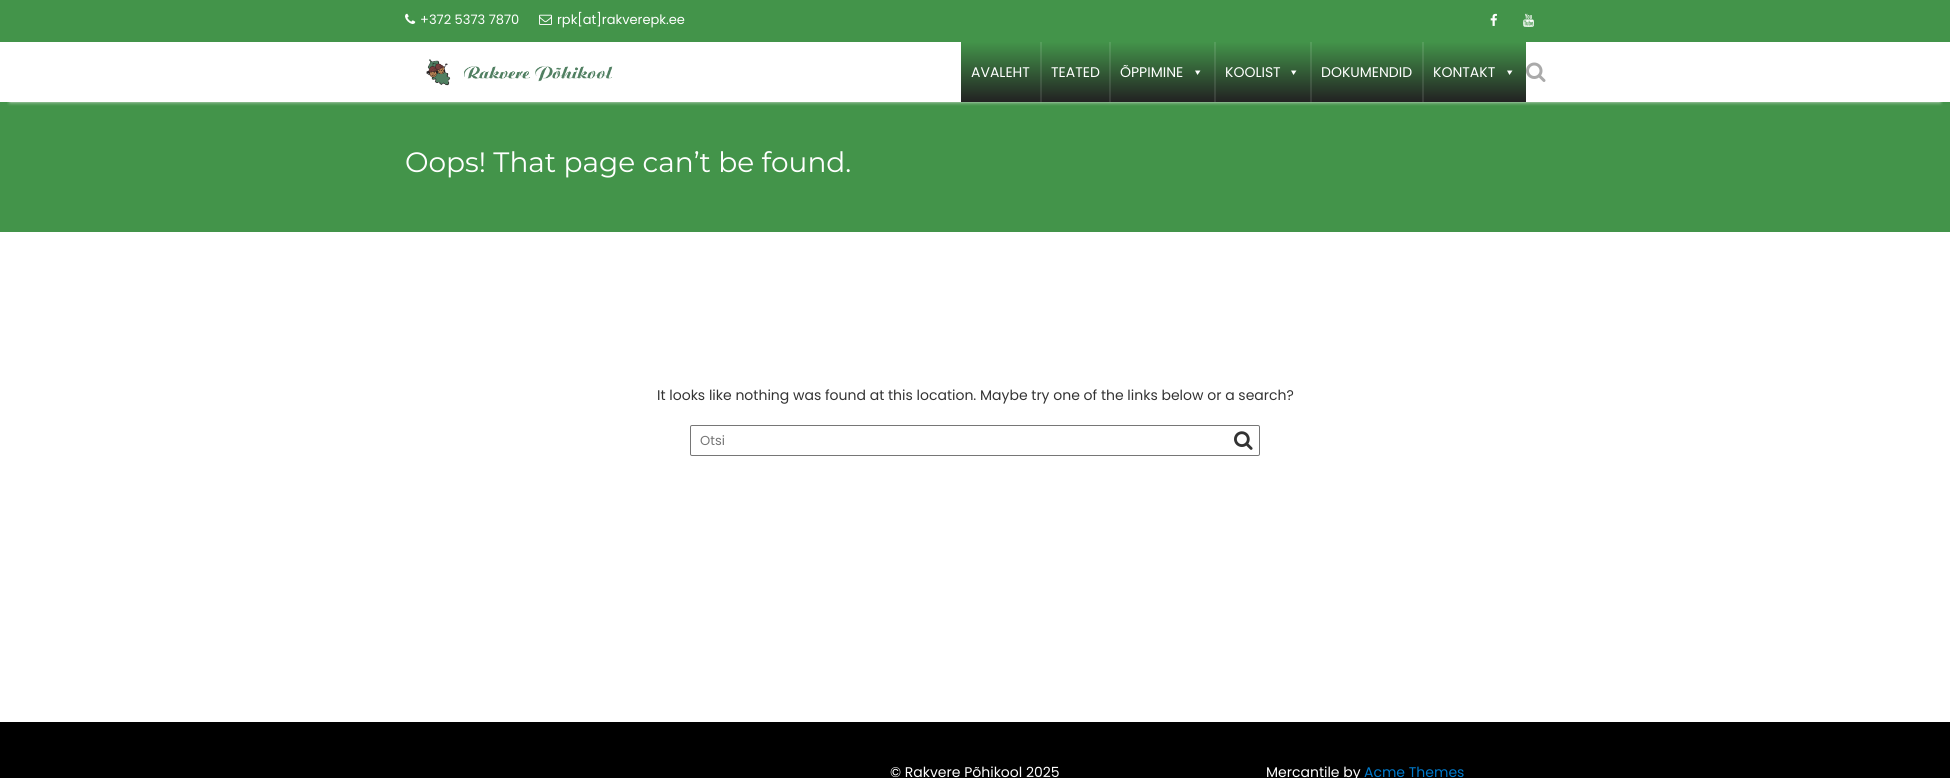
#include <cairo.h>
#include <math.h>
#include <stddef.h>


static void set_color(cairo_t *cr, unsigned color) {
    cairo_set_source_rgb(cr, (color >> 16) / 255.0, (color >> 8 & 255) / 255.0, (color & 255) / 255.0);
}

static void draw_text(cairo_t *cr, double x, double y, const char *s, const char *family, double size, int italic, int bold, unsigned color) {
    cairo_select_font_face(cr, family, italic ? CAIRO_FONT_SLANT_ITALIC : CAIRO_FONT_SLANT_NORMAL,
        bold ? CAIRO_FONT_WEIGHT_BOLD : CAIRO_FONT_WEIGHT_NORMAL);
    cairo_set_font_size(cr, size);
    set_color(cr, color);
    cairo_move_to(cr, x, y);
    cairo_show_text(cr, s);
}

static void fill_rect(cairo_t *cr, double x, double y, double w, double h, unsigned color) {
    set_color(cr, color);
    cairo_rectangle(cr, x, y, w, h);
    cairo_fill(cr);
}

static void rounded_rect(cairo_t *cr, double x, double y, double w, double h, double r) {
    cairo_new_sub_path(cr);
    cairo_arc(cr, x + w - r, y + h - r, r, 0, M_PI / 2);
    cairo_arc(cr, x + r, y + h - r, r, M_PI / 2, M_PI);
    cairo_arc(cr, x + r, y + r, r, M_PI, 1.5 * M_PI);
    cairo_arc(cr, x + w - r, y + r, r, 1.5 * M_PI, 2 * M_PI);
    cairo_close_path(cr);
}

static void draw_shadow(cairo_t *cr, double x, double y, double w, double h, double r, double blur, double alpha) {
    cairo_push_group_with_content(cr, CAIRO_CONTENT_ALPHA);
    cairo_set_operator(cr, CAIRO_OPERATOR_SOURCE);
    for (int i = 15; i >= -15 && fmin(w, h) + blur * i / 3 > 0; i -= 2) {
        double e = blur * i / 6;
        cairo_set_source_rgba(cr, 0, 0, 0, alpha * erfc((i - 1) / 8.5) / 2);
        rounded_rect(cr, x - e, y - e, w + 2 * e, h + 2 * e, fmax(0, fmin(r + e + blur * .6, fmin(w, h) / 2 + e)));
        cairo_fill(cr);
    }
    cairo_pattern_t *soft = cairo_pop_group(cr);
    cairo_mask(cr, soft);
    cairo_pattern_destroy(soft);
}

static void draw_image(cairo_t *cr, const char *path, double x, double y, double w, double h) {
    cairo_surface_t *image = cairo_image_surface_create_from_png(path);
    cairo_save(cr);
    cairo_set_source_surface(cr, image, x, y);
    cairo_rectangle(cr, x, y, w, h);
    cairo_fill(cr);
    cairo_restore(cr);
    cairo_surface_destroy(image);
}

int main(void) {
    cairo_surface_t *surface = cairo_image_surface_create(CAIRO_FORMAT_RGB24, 1950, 778);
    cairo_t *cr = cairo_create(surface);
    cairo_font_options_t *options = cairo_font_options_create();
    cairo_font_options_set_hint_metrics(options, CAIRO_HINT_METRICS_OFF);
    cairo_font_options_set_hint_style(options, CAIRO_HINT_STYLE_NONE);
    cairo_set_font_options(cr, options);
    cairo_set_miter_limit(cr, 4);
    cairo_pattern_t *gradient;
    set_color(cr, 0xFFFFFF);
    cairo_paint(cr);
    fill_rect(cr, 0, 0, 1950, 42, 0x43944A);
    draw_image(cr, "assets/img1.png", 405, 13, 11, 11);
    draw_text(cr, 420, 24, "+372 5373 7870", "Poppins", 13, 0, 0, 0xFFFFFF);
    draw_image(cr, "assets/img2.png", 539, 14, 13, 11);
    draw_text(cr, 557, 24, "rpk[at]rakverepk.ee", "Poppins", 13, 0, 0, 0xFFFFFF);
    draw_image(cr, "assets/img3.png", 1490, 13, 7, 13);
    draw_image(cr, "assets/img4.png", 1523, 13, 11, 14);
    fill_rect(cr, 0, 102, 1950, 130, 0x43944A);
    cairo_save(cr);
    cairo_rectangle(cr, 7, 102, 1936, 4);
    cairo_clip(cr);
    set_color(cr, 0xEEEEEE);
    draw_shadow(cr, 10, 62, 1930, 40, 0, 2, 0.9);
    cairo_restore(cr);
    draw_image(cr, "assets/img5.png", 426, 59, 187, 27);
    gradient = cairo_pattern_create_linear(1244, 42, 1244, 102);
    cairo_pattern_add_color_stop_rgba(gradient, 0, 0.263, 0.58, 0.29, 1);
    cairo_pattern_add_color_stop_rgba(gradient, 1, 0.133, 0.133, 0.133, 1);
    cairo_set_source(cr, gradient);
    cairo_pattern_destroy(gradient);
    cairo_rectangle(cr, 961, 42, 565, 60);
    cairo_fill(cr);
    gradient = cairo_pattern_create_linear(1244, 42, 1244, 102);
    cairo_pattern_add_color_stop_rgba(gradient, 0, 0.337, 0.624, 0.361, 1);
    cairo_pattern_add_color_stop_rgba(gradient, 1, 0.22, 0.22, 0.22, 1);
    cairo_set_source(cr, gradient);
    cairo_pattern_destroy(gradient);
    cairo_rectangle(cr, 1422, 42, 1, 60);
    cairo_fill(cr);
    cairo_rectangle(cr, 1423, 42, 1, 60);
    cairo_fill(cr);
    cairo_rectangle(cr, 1310, 42, 1, 60);
    cairo_fill(cr);
    cairo_rectangle(cr, 1311, 42, 1, 60);
    cairo_fill(cr);
    cairo_rectangle(cr, 1214, 42, 1, 60);
    cairo_fill(cr);
    cairo_rectangle(cr, 1215, 42, 1, 60);
    cairo_fill(cr);
    cairo_rectangle(cr, 1109, 42, 1, 60);
    cairo_fill(cr);
    cairo_rectangle(cr, 1110, 42, 1, 60);
    cairo_fill(cr);
    cairo_rectangle(cr, 1040, 42, 1, 60);
    cairo_fill(cr);
    cairo_rectangle(cr, 1041, 42, 1, 60);
    cairo_fill(cr);
    draw_text(cr, 971, 77, "AVALEHT", "Poppins", 14, 0, 0, 0xFFFFFF);
    draw_text(cr, 1051, 77, "TEATED", "Poppins", 14, 0, 0, 0xFFFFFF);
    draw_text(cr, 1120, 77, "ÕPPIMINE", "Poppins", 14, 0, 0, 0xFFFFFF);
    cairo_new_path(cr);
    cairo_move_to(cr, 1200.5, 70.5);
    cairo_line_to(cr, 1197.5, 75);
    cairo_line_to(cr, 1195, 70.5);
    cairo_close_path(cr);
    cairo_fill(cr);
    draw_text(cr, 1225, 77, "KOOLIST", "Poppins", 14, 0, 0, 0xFFFFFF);
    cairo_new_path(cr);
    cairo_move_to(cr, 1296.5, 70.5);
    cairo_line_to(cr, 1293.5, 75);
    cairo_line_to(cr, 1291, 70.5);
    cairo_close_path(cr);
    cairo_fill(cr);
    draw_text(cr, 1321, 77, "DOKUMENDID", "Poppins", 14, 0, 0, 0xFFFFFF);
    draw_text(cr, 1433, 77, "KONTAKT", "Poppins", 14, 0, 0, 0xFFFFFF);
    cairo_new_path(cr);
    cairo_move_to(cr, 1512.5, 70.5);
    cairo_line_to(cr, 1509.5, 75);
    cairo_line_to(cr, 1507, 70.5);
    cairo_close_path(cr);
    cairo_fill(cr);
    draw_image(cr, "assets/img6.png", 1526, 62, 20, 20);
    draw_text(cr, 405, 172, "Oops! That page can’t be found.", "Montserrat", 28, 0, 0, 0xFFFFFF);
    draw_text(cr, 657, 400, "It looks like nothing was found at this location. Maybe try one of the links below or a search?", "Poppins", 14, 0, 0, 0x333333);
    rounded_rect(cr, 690.5, 425.5, 569, 30, 1.5);
    set_color(cr, 0x767676);
    cairo_set_line_width(cr, 1);
    cairo_stroke(cr);
    draw_text(cr, 700, 445, "Otsi", "Poppins", 13, 0, 0, 0x757575);
    draw_image(cr, "assets/img7.png", 1234, 431, 19, 19);
    fill_rect(cr, 0, 722, 1950, 56, 0x000000);
    draw_text(cr, 890, 777, "© Rakvere Põhikool 2025", "Poppins", 14, 0, 0, 0xFFFFFF);
    draw_text(cr, 1266, 777, "Mercantile by", "Poppins", 14, 0, 0, 0xFFFFFF);
    draw_text(cr, 1364, 777, "Acme Themes", "Poppins", 14, 0, 0, 0x007ACC);
    cairo_surface_write_to_png(surface, "output.png");
    cairo_font_options_destroy(options);
    cairo_destroy(cr);
    cairo_surface_destroy(surface);
    return 0;
}
